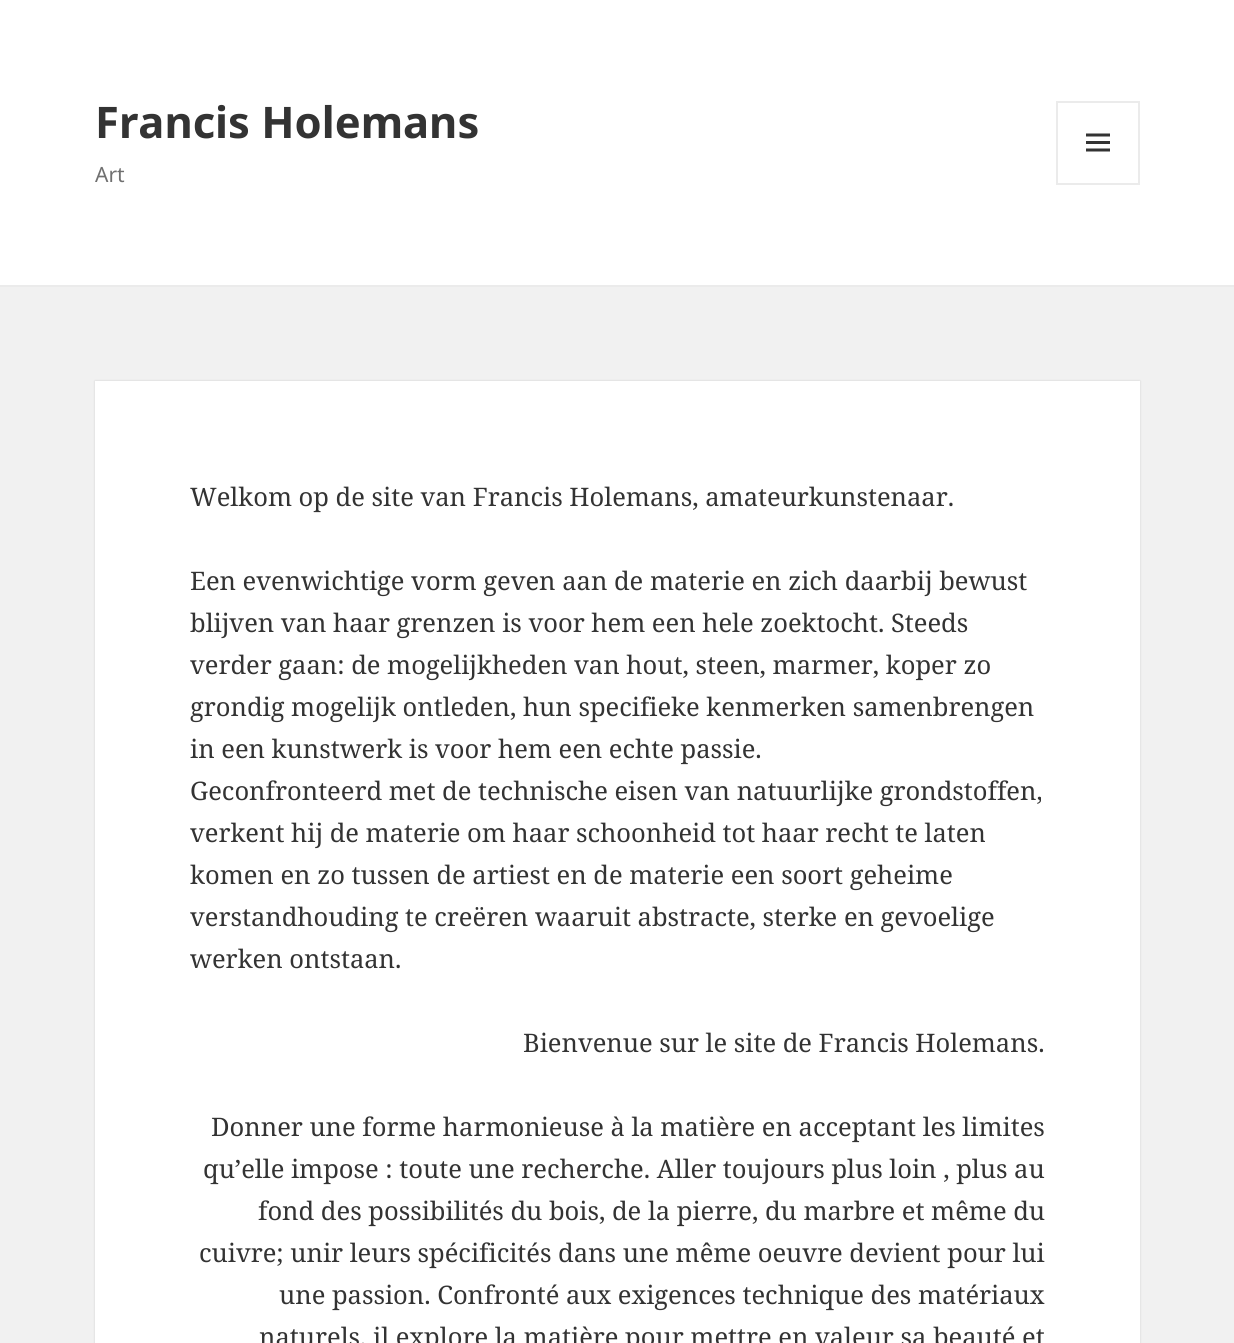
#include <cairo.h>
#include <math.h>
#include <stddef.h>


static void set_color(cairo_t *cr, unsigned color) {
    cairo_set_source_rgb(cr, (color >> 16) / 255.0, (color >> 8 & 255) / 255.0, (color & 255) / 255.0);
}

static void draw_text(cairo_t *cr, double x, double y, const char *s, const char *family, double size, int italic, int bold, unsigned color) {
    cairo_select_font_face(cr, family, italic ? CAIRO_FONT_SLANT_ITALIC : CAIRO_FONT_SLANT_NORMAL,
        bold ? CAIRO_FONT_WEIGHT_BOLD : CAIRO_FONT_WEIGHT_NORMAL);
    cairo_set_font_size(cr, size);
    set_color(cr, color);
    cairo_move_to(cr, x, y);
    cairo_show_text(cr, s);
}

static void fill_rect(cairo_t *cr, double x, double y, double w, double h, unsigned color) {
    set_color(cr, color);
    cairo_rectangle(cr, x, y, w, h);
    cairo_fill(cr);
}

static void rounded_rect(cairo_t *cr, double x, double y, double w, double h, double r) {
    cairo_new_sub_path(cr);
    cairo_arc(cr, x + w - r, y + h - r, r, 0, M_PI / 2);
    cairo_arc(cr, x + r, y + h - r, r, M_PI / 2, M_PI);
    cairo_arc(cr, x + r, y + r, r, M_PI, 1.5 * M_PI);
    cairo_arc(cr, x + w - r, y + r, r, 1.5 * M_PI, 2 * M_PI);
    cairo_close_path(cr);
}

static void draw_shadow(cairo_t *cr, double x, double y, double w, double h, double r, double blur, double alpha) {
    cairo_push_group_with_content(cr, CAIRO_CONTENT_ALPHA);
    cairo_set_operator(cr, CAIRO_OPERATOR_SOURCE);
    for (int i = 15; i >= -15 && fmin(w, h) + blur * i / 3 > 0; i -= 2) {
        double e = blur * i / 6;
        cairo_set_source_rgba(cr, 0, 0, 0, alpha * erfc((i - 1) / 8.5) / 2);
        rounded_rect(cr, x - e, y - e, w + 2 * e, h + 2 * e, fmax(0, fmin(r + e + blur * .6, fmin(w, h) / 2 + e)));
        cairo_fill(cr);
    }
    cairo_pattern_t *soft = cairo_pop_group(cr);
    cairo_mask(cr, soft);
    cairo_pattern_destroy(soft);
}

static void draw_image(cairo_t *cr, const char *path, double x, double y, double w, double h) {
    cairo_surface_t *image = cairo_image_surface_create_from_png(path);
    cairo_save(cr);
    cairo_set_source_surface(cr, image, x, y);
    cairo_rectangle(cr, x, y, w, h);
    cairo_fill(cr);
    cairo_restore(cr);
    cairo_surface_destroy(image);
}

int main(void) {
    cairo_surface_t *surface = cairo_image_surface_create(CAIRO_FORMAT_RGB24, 1234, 1343);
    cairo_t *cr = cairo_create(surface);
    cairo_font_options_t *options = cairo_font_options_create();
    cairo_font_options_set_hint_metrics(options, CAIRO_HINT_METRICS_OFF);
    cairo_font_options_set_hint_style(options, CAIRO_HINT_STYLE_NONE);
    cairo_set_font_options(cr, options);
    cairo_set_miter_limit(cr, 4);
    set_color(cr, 0xF1F1F1);
    cairo_paint(cr);
    fill_rect(cr, 0, 0, 1234, 285, 0xFFFFFF);
    fill_rect(cr, 0, 285, 1234, 2, 0xEBEBEB);
    draw_text(cr, 95, 138, "Francis Holemans", "Noto Sans", 43.5, 0, 1, 0x333333);
    cairo_rectangle(cr, 1057, 102, 82, 82);
    set_color(cr, 0xEBEBEB);
    cairo_stroke(cr);
    draw_image(cr, "assets/img1.png", 1086, 133, 24, 19);
    draw_text(cr, 95, 182, "Art", "Noto Sans", 21, 0, 0, 0x707070);
    set_color(cr, 0x000000);
    draw_shadow(cr, 95, 381, 1045, 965, 0, 1, 0.15);
    fill_rect(cr, 95, 381, 1045, 962, 0xFFFFFF);
    draw_text(cr, 190, 506, "Welkom op de site van Francis Holemans, amateurkunstenaar.", "Noto Serif", 25.5, 0, 0, 0x333333);
    draw_text(cr, 190, 590, "Een evenwichtige vorm geven aan de materie en zich daarbij bewust", "Noto Serif", 25.5, 0, 0, 0x333333);
    draw_text(cr, 190, 632, "blijven van haar grenzen is voor hem een hele zoektocht. Steeds", "Noto Serif", 25.5, 0, 0, 0x333333);
    draw_text(cr, 190, 674, "verder gaan: de mogelijkheden van hout, steen, marmer, koper zo", "Noto Serif", 25.5, 0, 0, 0x333333);
    draw_text(cr, 190, 716, "grondig mogelijk ontleden, hun specifieke kenmerken samenbrengen", "Noto Serif", 25.5, 0, 0, 0x333333);
    draw_text(cr, 190, 758, "in een kunstwerk is voor hem een echte passie.", "Noto Serif", 25.5, 0, 0, 0x333333);
    draw_text(cr, 190, 800, "Geconfronteerd met de technische eisen van natuurlijke grondstoffen,", "Noto Serif", 25.5, 0, 0, 0x333333);
    draw_text(cr, 190, 842, "verkent hij de materie om haar schoonheid tot haar recht te laten", "Noto Serif", 25.5, 0, 0, 0x333333);
    draw_text(cr, 190, 884, "komen en zo tussen de artiest en de materie een soort geheime", "Noto Serif", 25.5, 0, 0, 0x333333);
    draw_text(cr, 190, 926, "verstandhouding te creëren waaruit abstracte, sterke en gevoelige", "Noto Serif", 25.5, 0, 0, 0x333333);
    draw_text(cr, 190, 968, "werken ontstaan.", "Noto Serif", 25.5, 0, 0, 0x333333);
    draw_text(cr, 523, 1052, "Bienvenue sur le site de Francis Holemans.", "Noto Serif", 25.5, 0, 0, 0x333333);
    draw_text(cr, 211, 1136, "Donner une forme harmonieuse à la matière en acceptant les limites", "Noto Serif", 25.5, 0, 0, 0x333333);
    draw_text(cr, 203, 1178, "qu’elle impose : toute une recherche. Aller toujours plus loin , plus au", "Noto Serif", 25.5, 0, 0, 0x333333);
    draw_text(cr, 258, 1220, "fond des possibilités du bois, de la pierre, du marbre et même du", "Noto Serif", 25.5, 0, 0, 0x333333);
    draw_text(cr, 199, 1262, "cuivre; unir leurs spécificités dans une même oeuvre devient pour lui", "Noto Serif", 25.5, 0, 0, 0x333333);
    draw_text(cr, 279, 1304, "une passion. Confronté aux exigences technique des matériaux", "Noto Serif", 25.5, 0, 0, 0x333333);
    draw_text(cr, 259, 1346, "naturels, il explore la matière pour mettre en valeur sa beauté et", "Noto Serif", 25.5, 0, 0, 0x333333);
    cairo_surface_write_to_png(surface, "output.png");
    cairo_font_options_destroy(options);
    cairo_destroy(cr);
    cairo_surface_destroy(surface);
    return 0;
}
